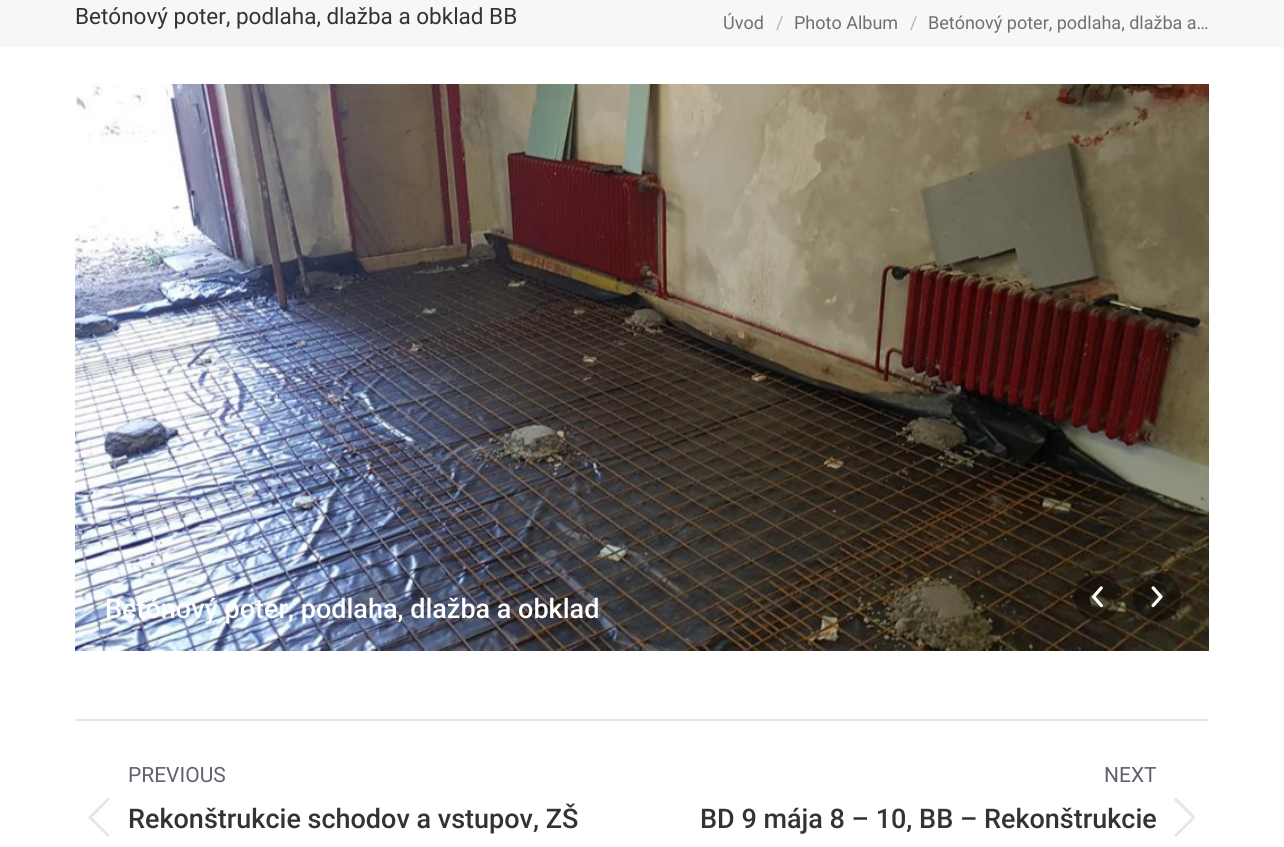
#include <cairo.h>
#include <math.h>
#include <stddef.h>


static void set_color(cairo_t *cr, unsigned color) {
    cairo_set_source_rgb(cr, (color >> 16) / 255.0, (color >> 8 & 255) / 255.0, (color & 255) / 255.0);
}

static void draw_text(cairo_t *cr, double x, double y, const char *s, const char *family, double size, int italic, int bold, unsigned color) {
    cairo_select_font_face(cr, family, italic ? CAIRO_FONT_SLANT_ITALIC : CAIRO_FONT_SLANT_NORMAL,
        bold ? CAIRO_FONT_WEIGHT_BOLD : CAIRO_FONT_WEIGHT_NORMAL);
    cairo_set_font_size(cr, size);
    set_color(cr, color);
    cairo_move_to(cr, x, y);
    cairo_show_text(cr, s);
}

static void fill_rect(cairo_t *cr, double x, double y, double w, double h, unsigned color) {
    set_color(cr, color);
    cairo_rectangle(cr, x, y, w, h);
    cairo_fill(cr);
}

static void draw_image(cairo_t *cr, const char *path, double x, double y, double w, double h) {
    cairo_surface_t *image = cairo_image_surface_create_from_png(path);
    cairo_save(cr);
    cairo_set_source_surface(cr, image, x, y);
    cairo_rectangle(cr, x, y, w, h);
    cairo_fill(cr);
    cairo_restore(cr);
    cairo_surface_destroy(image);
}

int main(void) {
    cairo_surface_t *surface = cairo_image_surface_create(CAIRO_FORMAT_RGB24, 1284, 847);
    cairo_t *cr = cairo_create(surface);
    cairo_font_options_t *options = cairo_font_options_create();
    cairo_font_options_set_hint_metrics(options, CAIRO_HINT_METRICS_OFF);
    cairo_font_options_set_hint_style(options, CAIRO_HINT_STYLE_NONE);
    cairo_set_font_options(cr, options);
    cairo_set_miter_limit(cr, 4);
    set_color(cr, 0xFFFFFF);
    cairo_paint(cr);
    fill_rect(cr, 0, 0, 1284, 47, 0xF7F7F7);
    draw_text(cr, 75, 24, "Betónový poter, podlaha, dlažba a obklad BB", "Roboto", 22.5, 0, 0, 0x333333);
    draw_text(cr, 723, 29, "Úvod", "Roboto", 18, 0, 0, 0x707070);
    draw_text(cr, 776, 29, "/", "Roboto", 18, 0, 0, 0xB4B4B4);
    draw_text(cr, 794, 29, "Photo Album", "Roboto", 18, 0, 0, 0x707070);
    draw_text(cr, 910, 29, "/", "Roboto", 18, 0, 0, 0xB4B4B4);
    draw_text(cr, 928, 29, "Betónový poter, podlaha, dlažba a…", "Roboto", 18, 0, 0, 0x707070);
    draw_image(cr, "assets/img1.png", 75, 84, 1134, 567);
    draw_text(cr, 105, 618, "Betónový poter, podlaha, dlažba a obklad", "Roboto Medium", 27, 0, 0, 0xFFFFFF);
    cairo_set_source_rgba(cr, 0, 0, 0, 0.4);
    cairo_new_path(cr);
    cairo_arc(cr, 1098, 597, 24, 0, 2 * M_PI);
    cairo_fill(cr);
    draw_image(cr, "assets/img2.png", 1091, 586, 12, 22);
    cairo_arc(cr, 1157, 597, 24, 0, 2 * M_PI);
    cairo_fill(cr);
    draw_image(cr, "assets/img3.png", 1151, 586, 12, 22);
    fill_rect(cr, 75, 719, 1134, 2, 0xE7E7E7);
    draw_text(cr, 128, 782, "PREVIOUS", "Roboto", 21, 0, 0, 0x5E626B);
    draw_image(cr, "assets/img4.png", 88, 798, 22, 39);
    draw_text(cr, 128, 828, "Rekonštrukcie schodov a vstupov, ZŠ", "Roboto Medium", 27, 0, 0, 0x333333);
    draw_text(cr, 1104, 782, "NEXT", "Roboto", 21, 0, 0, 0x5E626B);
    draw_text(cr, 700, 828, "BD 9 mája 8 – 10, BB – Rekonštrukcie", "Roboto Medium", 27, 0, 0, 0x333333);
    draw_image(cr, "assets/img5.png", 1174, 798, 22, 39);
    cairo_surface_write_to_png(surface, "output.png");
    cairo_font_options_destroy(options);
    cairo_destroy(cr);
    cairo_surface_destroy(surface);
    return 0;
}
